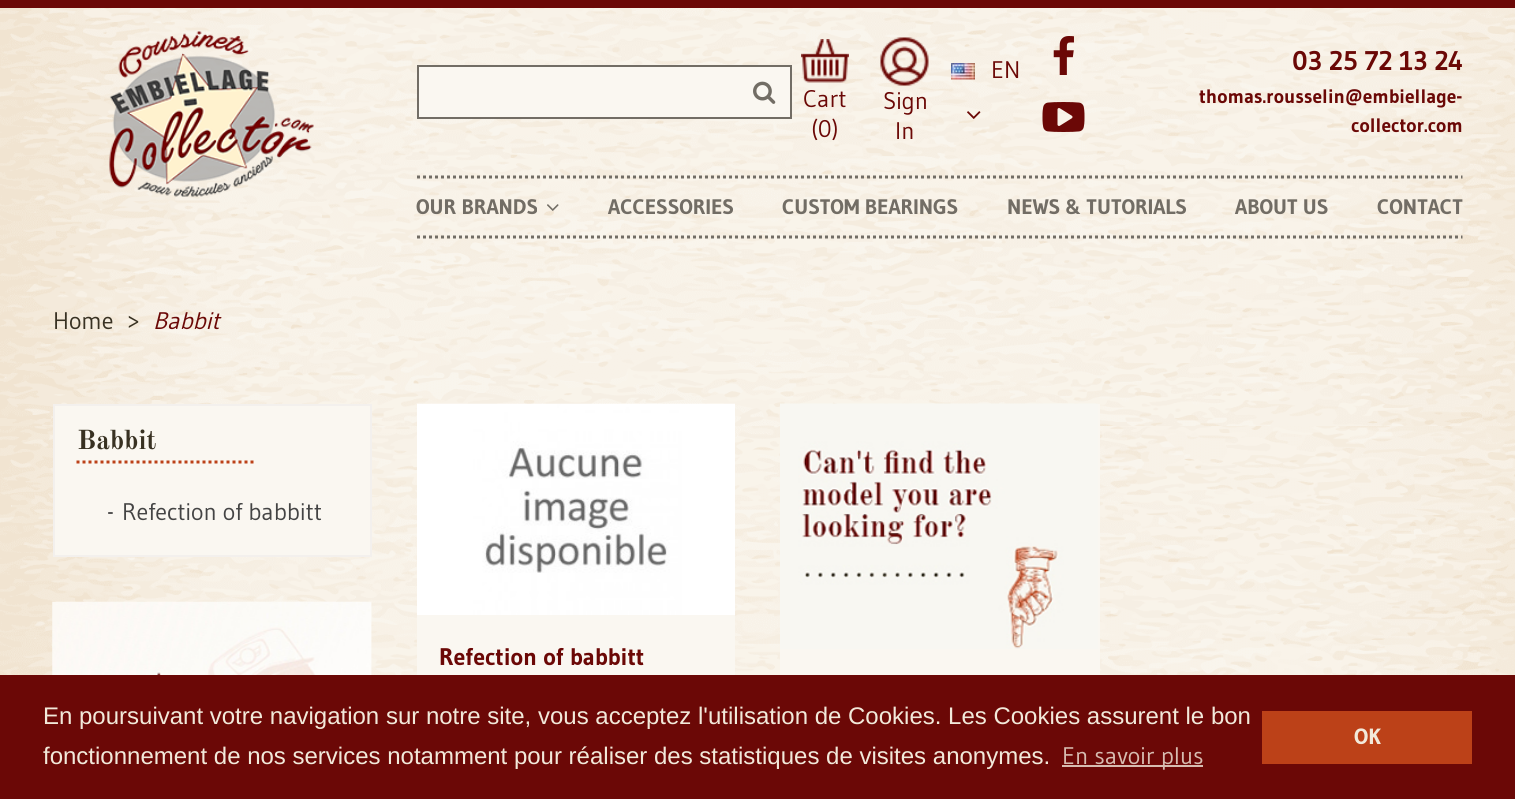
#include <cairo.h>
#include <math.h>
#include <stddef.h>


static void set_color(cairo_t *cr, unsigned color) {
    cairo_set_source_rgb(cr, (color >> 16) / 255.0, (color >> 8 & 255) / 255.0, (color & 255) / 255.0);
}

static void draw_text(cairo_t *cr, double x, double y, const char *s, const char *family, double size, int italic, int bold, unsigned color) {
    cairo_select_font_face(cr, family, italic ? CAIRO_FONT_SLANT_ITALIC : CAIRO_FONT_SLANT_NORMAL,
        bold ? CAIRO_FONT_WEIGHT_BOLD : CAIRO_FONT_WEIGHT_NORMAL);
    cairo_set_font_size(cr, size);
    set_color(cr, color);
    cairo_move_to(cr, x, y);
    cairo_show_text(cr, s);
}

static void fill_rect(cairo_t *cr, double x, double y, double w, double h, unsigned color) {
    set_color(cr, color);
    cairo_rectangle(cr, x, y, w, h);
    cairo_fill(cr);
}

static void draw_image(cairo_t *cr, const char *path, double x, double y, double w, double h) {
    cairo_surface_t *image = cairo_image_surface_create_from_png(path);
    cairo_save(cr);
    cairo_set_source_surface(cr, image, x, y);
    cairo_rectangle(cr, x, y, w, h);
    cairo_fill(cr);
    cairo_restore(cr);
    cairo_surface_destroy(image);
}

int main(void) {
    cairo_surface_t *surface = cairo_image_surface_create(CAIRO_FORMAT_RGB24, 1515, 799);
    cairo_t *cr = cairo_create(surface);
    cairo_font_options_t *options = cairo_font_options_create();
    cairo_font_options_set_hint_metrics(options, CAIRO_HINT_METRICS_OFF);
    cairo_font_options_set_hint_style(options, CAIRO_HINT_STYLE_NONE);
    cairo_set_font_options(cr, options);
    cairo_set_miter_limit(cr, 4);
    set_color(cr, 0xFFFFFF);
    cairo_paint(cr);
    draw_image(cr, "assets/img1.png", 0, 8, 1515, 667);
    fill_rect(cr, 0, 0, 1515, 8, 0x6B0806);
    draw_image(cr, "assets/img2.png", 109, 31, 205, 166);
    set_color(cr, 0xFAF7F1);
    cairo_rectangle(cr, 418, 66, 373, 52);
    cairo_fill_preserve(cr);
    set_color(cr, 0x726D65);
    cairo_stroke(cr);
    draw_image(cr, "assets/img3.png", 753, 81, 23, 23);
    draw_image(cr, "assets/img4.png", 801, 39, 48, 44);
    draw_text(cr, 803, 107, "Cart", "Gudea", 24, 0, 0, 0x6B0806);
    draw_text(cr, 811, 137, "(0)", "Gudea", 24, 0, 0, 0x6B0806);
    draw_image(cr, "assets/img5.png", 880, 37, 49, 49);
    draw_text(cr, 883, 109, "Sign", "Gudea", 24, 0, 0, 0x6B0806);
    draw_text(cr, 895, 139, "In", "Gudea", 24, 0, 0, 0x6B0806);
    draw_image(cr, "assets/img6.png", 951, 63, 24, 17);
    draw_text(cr, 991, 78, "EN", "Gudea", 24, 0, 0, 0x6B0806);
    draw_image(cr, "assets/img7.png", 967, 111, 14, 8);
    draw_image(cr, "assets/img8.png", 1053, 36, 21, 39);
    draw_image(cr, "assets/img9.png", 1042, 102, 43, 30);
    draw_text(cr, 1292, 70, "03 25 72 13 24", "Gudea", 27, 0, 1, 0x6B0806);
    draw_text(cr, 1199, 103, "thomas.rousselin@embiellage-", "Gudea", 19.5, 0, 1, 0x6B0806);
    draw_text(cr, 1351, 132, "collector.com", "Gudea", 19.5, 0, 1, 0x6B0806);
    cairo_new_path(cr);
    cairo_move_to(cr, 417, 177);
    cairo_line_to(cr, 1462.5, 177);
    set_color(cr, 0x726D65);
    cairo_set_line_width(cr, 3);
    cairo_set_dash(cr, (double[]){3, 3}, 2, 0);
    cairo_stroke(cr);
    cairo_new_path(cr);
    cairo_move_to(cr, 417, 237);
    cairo_line_to(cr, 1462.5, 237);
    cairo_stroke(cr);
    draw_text(cr, 416, 214, "OUR BRANDS", "Gudea", 21, 0, 1, 0x726D65);
    draw_image(cr, "assets/img10.png", 547, 204, 12, 7);
    draw_text(cr, 608, 214, "ACCESSORIES", "Gudea", 21, 0, 1, 0x726D65);
    draw_text(cr, 782, 214, "CUSTOM BEARINGS", "Gudea", 21, 0, 1, 0x726D65);
    draw_text(cr, 1007, 214, "NEWS & TUTORIALS", "Gudea", 21, 0, 1, 0x726D65);
    draw_text(cr, 1235, 214, "ABOUT US", "Gudea", 21, 0, 1, 0x726D65);
    draw_text(cr, 1377, 214, "CONTACT", "Gudea", 21, 0, 1, 0x726D65);
    draw_text(cr, 53, 329, "Home", "Gudea", 24, 0, 0, 0x383122);
    draw_text(cr, 127, 329, ">", "Gudea", 24, 0, 0, 0x383122);
    draw_text(cr, 153, 329, "Babbit", "Gudea", 24, 1, 0, 0x6B0806);
    set_color(cr, 0xFAF7F1);
    cairo_rectangle(cr, 54, 405, 317, 151);
    cairo_fill_preserve(cr);
    set_color(cr, 0xF3F0ED);
    cairo_set_line_width(cr, 2);
    cairo_set_dash(cr, NULL, 0, 0);
    cairo_stroke(cr);
    draw_text(cr, 77, 449, "Babbit", "Old Standard TT", 27, 0, 1, 0x383122);
    cairo_new_path(cr);
    cairo_move_to(cr, 76.5, 462);
    cairo_line_to(cr, 256.5, 462);
    set_color(cr, 0xBC4118);
    cairo_set_line_width(cr, 3);
    cairo_set_dash(cr, (double[]){3, 3}, 2, 0);
    cairo_stroke(cr);
    draw_text(cr, 107, 520, "-", "Gudea", 24, 0, 0, 0x444444);
    draw_text(cr, 122, 520, "Refection of babbitt", "Gudea", 24, 0, 0, 0x444444);
    draw_image(cr, "assets/img11.png", 52, 601, 320, 74);
    fill_rect(cr, 417, 615, 318, 60, 0xFAF7F1);
    draw_image(cr, "assets/img12.png", 417, 403, 318, 212);
    draw_text(cr, 439, 665, "Refection of babbitt", "Gudea", 24, 0, 1, 0x6B0806);
    fill_rect(cr, 780, 404, 320, 271, 0xFAF7F1);
    draw_image(cr, "assets/img13.png", 780, 403, 318, 246);
    fill_rect(cr, 0, 675, 1515, 124, 0x6B0806);
    draw_text(cr, 43, 724, "En poursuivant votre navigation sur notre site, vous acceptez l'utilisation de Cookies. Les Cookies assurent le bon", "Liberation Sans", 24, 0, 0, 0xF2E9DA);
    draw_text(cr, 43, 764, "fonctionnement de nos services notamment pour réaliser des statistiques de visites anonymes.", "Liberation Sans", 24, 0, 0, 0xF2E9DA);
    fill_rect(cr, 1062, 765, 141, 2, 0xD7BCB0);
    draw_text(cr, 1062, 764, "En savoir plus", "Gudea", 24, 0, 0, 0xD7BCB0);
    fill_rect(cr, 1262, 711, 210, 53, 0xBC4118);
    draw_text(cr, 1354, 744, "OK", "Gudea", 22, 0, 1, 0xF2E9DA);
    cairo_surface_write_to_png(surface, "output.png");
    cairo_font_options_destroy(options);
    cairo_destroy(cr);
    cairo_surface_destroy(surface);
    return 0;
}
